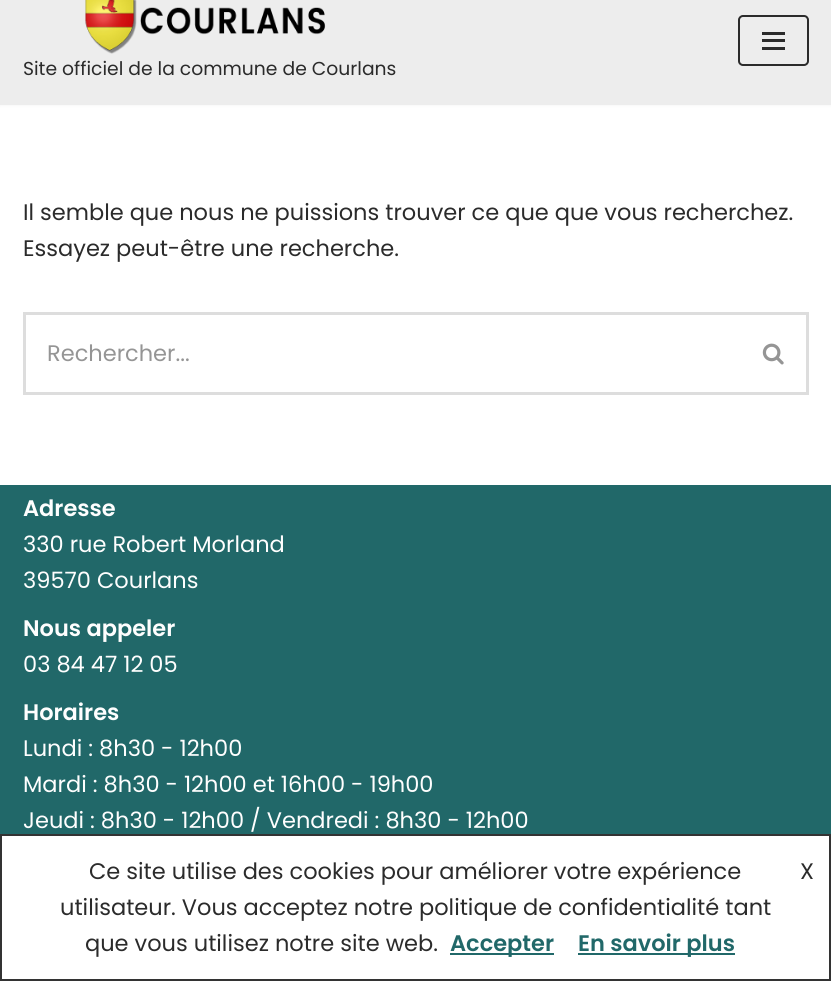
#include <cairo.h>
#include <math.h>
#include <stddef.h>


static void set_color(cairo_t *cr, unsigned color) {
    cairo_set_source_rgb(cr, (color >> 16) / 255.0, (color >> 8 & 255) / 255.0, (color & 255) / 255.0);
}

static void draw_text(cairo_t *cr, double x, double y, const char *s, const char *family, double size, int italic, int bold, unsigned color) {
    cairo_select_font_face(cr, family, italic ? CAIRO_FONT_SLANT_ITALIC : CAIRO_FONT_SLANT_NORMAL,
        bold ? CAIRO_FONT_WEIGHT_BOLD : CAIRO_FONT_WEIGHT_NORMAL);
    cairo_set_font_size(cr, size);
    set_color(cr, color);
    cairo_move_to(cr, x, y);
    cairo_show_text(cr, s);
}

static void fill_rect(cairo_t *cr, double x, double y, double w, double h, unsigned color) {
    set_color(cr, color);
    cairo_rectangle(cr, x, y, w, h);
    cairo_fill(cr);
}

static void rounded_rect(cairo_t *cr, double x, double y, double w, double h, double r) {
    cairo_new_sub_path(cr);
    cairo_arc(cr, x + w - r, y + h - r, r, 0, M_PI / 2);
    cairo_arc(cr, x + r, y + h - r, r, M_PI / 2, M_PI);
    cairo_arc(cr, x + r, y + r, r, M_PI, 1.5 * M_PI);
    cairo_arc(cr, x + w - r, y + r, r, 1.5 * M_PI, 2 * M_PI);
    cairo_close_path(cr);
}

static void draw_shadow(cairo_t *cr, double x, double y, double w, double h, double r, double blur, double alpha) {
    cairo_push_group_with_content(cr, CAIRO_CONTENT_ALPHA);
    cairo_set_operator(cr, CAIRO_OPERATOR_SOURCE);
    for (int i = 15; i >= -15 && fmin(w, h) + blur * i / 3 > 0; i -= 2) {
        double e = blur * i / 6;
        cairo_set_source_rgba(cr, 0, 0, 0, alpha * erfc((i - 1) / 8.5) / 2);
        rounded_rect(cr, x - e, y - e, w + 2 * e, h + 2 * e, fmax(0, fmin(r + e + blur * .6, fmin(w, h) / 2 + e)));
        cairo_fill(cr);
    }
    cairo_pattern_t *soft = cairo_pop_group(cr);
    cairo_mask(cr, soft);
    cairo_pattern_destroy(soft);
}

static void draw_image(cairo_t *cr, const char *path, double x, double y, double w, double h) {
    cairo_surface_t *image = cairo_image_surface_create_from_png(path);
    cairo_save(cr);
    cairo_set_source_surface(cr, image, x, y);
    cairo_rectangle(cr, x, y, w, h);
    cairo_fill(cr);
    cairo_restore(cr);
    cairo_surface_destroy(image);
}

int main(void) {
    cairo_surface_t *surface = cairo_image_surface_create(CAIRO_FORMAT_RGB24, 831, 981);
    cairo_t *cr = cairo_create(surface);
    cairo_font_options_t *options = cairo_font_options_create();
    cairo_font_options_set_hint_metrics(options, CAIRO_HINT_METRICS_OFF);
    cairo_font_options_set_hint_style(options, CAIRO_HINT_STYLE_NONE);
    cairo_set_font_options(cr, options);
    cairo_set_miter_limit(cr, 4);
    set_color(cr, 0xFFFFFF);
    cairo_paint(cr);
    set_color(cr, 0x000000);
    draw_shadow(cr, 0, -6, 831, 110, 0, 2, 0.1);
    fill_rect(cr, 0, 0, 831, 105, 0xEDEDED);
    rounded_rect(cr, 739, 16, 69, 49, 4);
    set_color(cr, 0x2B2B2B);
    cairo_stroke(cr);
    fill_rect(cr, 762, 32, 23, 3, 0x2B2B2B);
    fill_rect(cr, 762, 39, 23, 3, 0x2B2B2B);
    fill_rect(cr, 762, 47, 23, 3, 0x2B2B2B);
    draw_image(cr, "assets/img1.png", 85, 0, 241, 54);
    draw_text(cr, 23, 75, "Site officiel de la commune de Courlans", "Poppins", 18.75, 0, 0, 0x2B2B2B);
    draw_text(cr, 23, 220, "Il semble que nous ne puissions trouver ce que que vous recherchez.", "Poppins", 22.5, 0, 0, 0x2B2B2B);
    draw_text(cr, 23, 256, "Essayez peut-être une recherche.", "Poppins", 22.5, 0, 0, 0x2B2B2B);
    fill_rect(cr, 23, 312, 786, 3, 0xDDDDDD);
    fill_rect(cr, 23, 392, 718, 3, 0xDDDDDD);
    fill_rect(cr, 23, 312, 3, 83, 0xDDDDDD);
    draw_text(cr, 47, 361, "Rechercher...", "Poppins", 22.5, 0, 0, 0x959595);
    fill_rect(cr, 806, 312, 3, 83, 0xDDDDDD);
    fill_rect(cr, 741, 392, 68, 3, 0xDDDDDD);
    draw_image(cr, "assets/img2.png", 762, 343, 22, 22);
    fill_rect(cr, 0, 485, 831, 349, 0x216869);
    draw_text(cr, 23, 516, "Adresse", "Poppins SemiBold", 22.5, 0, 0, 0xFEFEFE);
    draw_text(cr, 23, 552, "330 rue Robert Morland", "Poppins", 22.5, 0, 0, 0xFEFEFE);
    draw_text(cr, 23, 588, "39570 Courlans", "Poppins", 22.5, 0, 0, 0xFEFEFE);
    draw_text(cr, 23, 636, "Nous appeler", "Poppins SemiBold", 22.5, 0, 0, 0xFEFEFE);
    draw_text(cr, 23, 672, "03 84 47 12 05", "Poppins", 22.5, 0, 0, 0xFEFEFE);
    draw_text(cr, 23, 720, "Horaires", "Poppins SemiBold", 22.5, 0, 0, 0xFEFEFE);
    draw_text(cr, 23, 756, "Lundi : 8h30 - 12h00", "Poppins", 22.5, 0, 0, 0xFEFEFE);
    draw_text(cr, 23, 792, "Mardi : 8h30 - 12h00 et 16h00 - 19h00", "Poppins", 22.5, 0, 0, 0xFEFEFE);
    draw_text(cr, 23, 828, "Jeudi : 8h30 - 12h00 / Vendredi : 8h30 - 12h00", "Poppins", 22.5, 0, 0, 0xFEFEFE);
    cairo_rectangle(cr, 1, 835, 829, 145);
    set_color(cr, 0x333333);
    cairo_stroke(cr);
    draw_text(cr, 89, 879, "Ce site utilise des cookies pour améliorer votre expérience", "Poppins", 22.5, 0, 0, 0x2B2B2B);
    draw_text(cr, 800, 879, "X", "Poppins", 22.5, 0, 0, 0x2B2B2B);
    draw_text(cr, 60, 915, "utilisateur. Vous acceptez notre politique de confidentialité tant", "Poppins", 22.5, 0, 0, 0x2B2B2B);
    draw_text(cr, 85, 951, "que vous utilisez notre site web.", "Poppins", 22.5, 0, 0, 0x2B2B2B);
    fill_rect(cr, 450, 953, 104, 2, 0x216869);
    draw_text(cr, 450, 951, "Accepter", "Poppins SemiBold", 22.5, 0, 0, 0x216869);
    fill_rect(cr, 578, 953, 157, 2, 0x216869);
    draw_text(cr, 578, 951, "En savoir plus", "Poppins SemiBold", 22.5, 0, 0, 0x216869);
    cairo_surface_write_to_png(surface, "output.png");
    cairo_font_options_destroy(options);
    cairo_destroy(cr);
    cairo_surface_destroy(surface);
    return 0;
}
